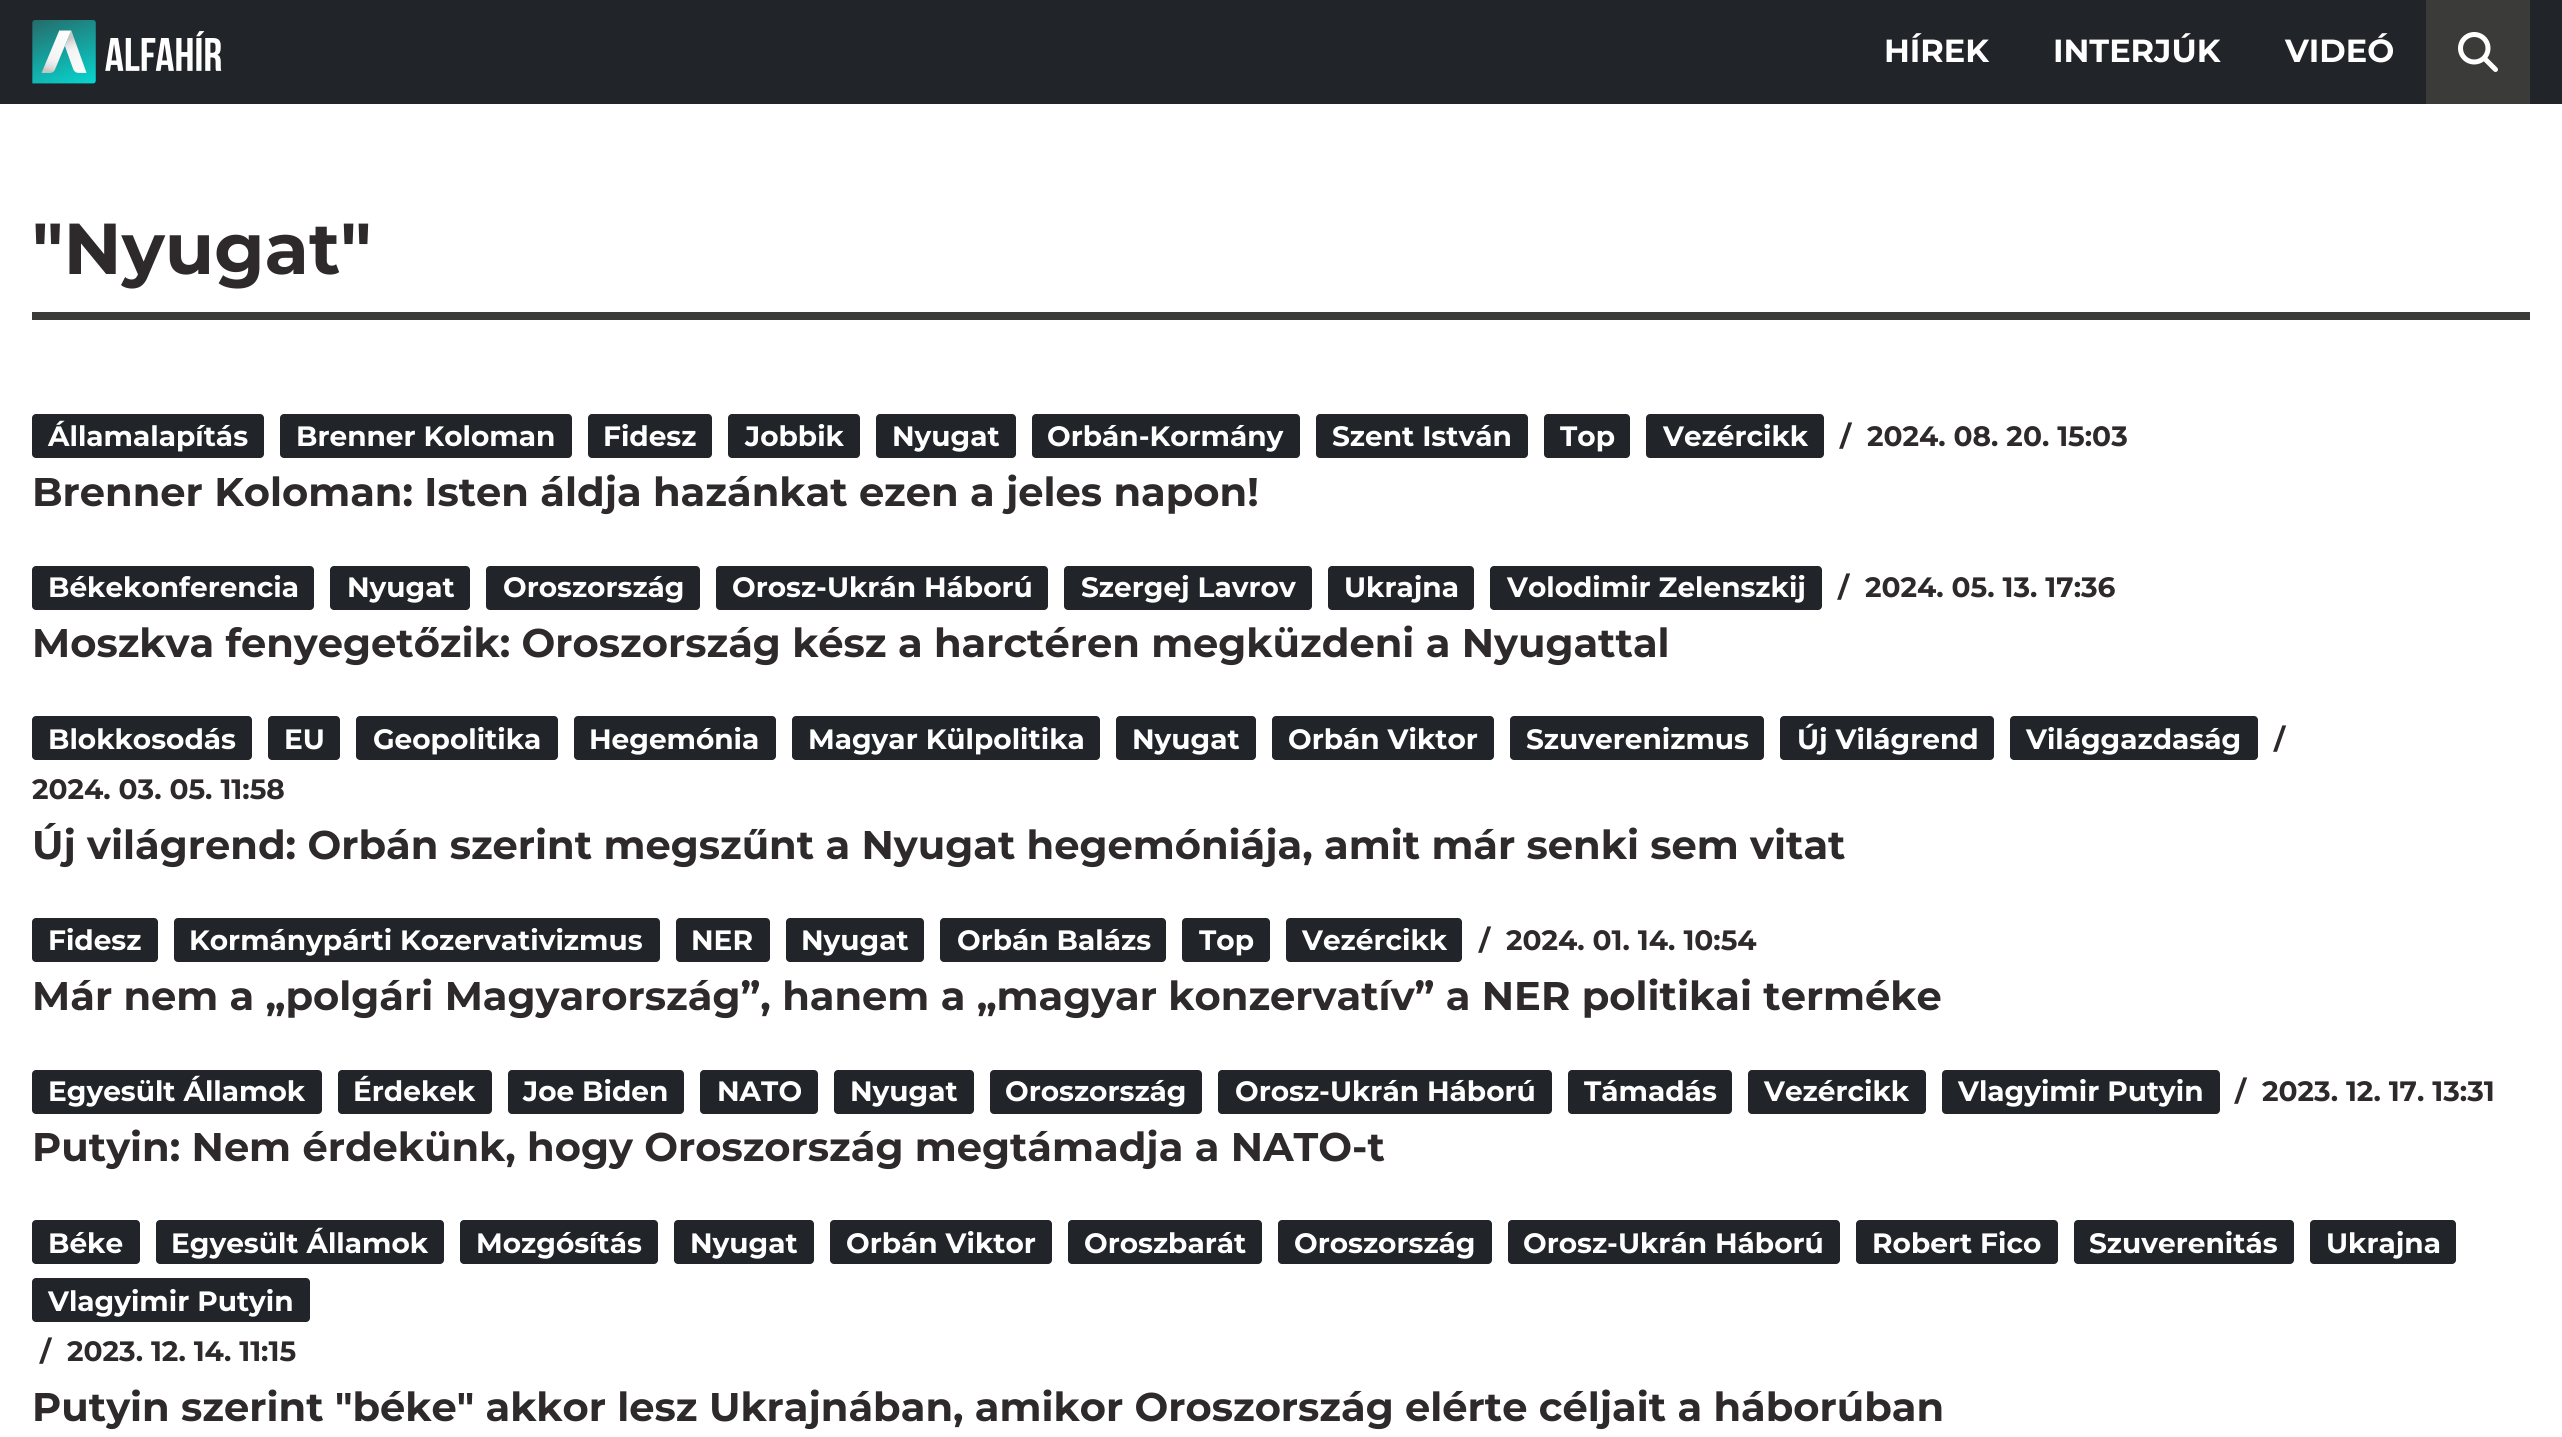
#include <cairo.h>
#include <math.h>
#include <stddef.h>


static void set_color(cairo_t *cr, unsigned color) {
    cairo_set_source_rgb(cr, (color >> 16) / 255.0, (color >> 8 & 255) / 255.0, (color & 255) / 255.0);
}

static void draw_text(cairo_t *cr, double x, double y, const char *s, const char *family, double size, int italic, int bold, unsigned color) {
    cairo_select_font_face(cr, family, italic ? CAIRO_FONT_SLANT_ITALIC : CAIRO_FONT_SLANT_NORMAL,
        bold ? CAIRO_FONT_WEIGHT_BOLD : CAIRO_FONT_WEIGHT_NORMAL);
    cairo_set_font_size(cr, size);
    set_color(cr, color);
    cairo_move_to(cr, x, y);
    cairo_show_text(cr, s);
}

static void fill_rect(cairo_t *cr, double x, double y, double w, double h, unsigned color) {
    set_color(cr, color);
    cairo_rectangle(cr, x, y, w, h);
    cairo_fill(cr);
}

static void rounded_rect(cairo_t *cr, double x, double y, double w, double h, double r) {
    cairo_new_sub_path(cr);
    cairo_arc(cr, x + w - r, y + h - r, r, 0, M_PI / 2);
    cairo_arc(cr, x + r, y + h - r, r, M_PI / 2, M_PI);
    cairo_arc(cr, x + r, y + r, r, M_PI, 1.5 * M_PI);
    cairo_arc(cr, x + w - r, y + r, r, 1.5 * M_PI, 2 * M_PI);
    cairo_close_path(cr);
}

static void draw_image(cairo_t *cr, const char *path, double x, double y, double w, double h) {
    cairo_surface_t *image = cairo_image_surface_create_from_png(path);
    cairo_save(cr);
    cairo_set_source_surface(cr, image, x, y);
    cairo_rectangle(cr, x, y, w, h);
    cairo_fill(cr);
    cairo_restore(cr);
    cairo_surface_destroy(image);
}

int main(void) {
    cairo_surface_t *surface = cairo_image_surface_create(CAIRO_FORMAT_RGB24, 2562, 1437);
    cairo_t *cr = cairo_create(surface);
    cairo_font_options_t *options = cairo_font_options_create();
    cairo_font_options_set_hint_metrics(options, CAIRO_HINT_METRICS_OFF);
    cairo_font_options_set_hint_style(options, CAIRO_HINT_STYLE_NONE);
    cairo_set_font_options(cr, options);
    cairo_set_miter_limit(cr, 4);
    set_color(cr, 0xFFFFFF);
    cairo_paint(cr);
    fill_rect(cr, 0, 0, 2562, 104, 0x212529);
    draw_image(cr, "assets/img1.png", 32, 20, 190, 64);
    draw_text(cr, 1884, 62, "HÍREK", "Montserrat", 32, 0, 1, 0xFFFFFF);
    draw_text(cr, 2053, 62, "INTERJÚK", "Montserrat", 32, 0, 1, 0xFFFFFF);
    draw_text(cr, 2285, 62, "VIDEÓ", "Montserrat", 32, 0, 1, 0xFFFFFF);
    fill_rect(cr, 2426, 0, 104, 104, 0x3B3B3A);
    draw_image(cr, "assets/img2.png", 2458, 32, 40, 40);
    fill_rect(cr, 32, 312, 2498, 8, 0x3B3B3A);
    draw_text(cr, 32, 274, "\"Nyugat\"", "Montserrat", 72, 0, 1, 0x2E292A);
    set_color(cr, 0x212529);
    rounded_rect(cr, 32, 414, 232, 44, 4);
    cairo_fill(cr);
    draw_text(cr, 48, 446, "Államalapítás", "Montserrat", 28, 0, 1, 0xFFFFFF);
    set_color(cr, 0x212529);
    rounded_rect(cr, 280, 414, 292, 44, 4);
    cairo_fill(cr);
    draw_text(cr, 296, 446, "Brenner Koloman", "Montserrat", 28, 0, 1, 0xFFFFFF);
    set_color(cr, 0x212529);
    rounded_rect(cr, 588, 414, 124, 44, 4);
    cairo_fill(cr);
    draw_text(cr, 603, 446, "Fidesz", "Montserrat", 28, 0, 1, 0xFFFFFF);
    set_color(cr, 0x212529);
    rounded_rect(cr, 728, 414, 132, 44, 4);
    cairo_fill(cr);
    draw_text(cr, 745, 446, "Jobbik", "Montserrat", 28, 0, 1, 0xFFFFFF);
    set_color(cr, 0x212529);
    rounded_rect(cr, 876, 414, 140, 44, 4);
    cairo_fill(cr);
    draw_text(cr, 892, 446, "Nyugat", "Montserrat", 28, 0, 1, 0xFFFFFF);
    set_color(cr, 0x212529);
    rounded_rect(cr, 1032, 414, 268, 44, 4);
    cairo_fill(cr);
    draw_text(cr, 1047, 446, "Orbán-Kormány", "Montserrat", 28, 0, 1, 0xFFFFFF);
    set_color(cr, 0x212529);
    rounded_rect(cr, 1316, 414, 212, 44, 4);
    cairo_fill(cr);
    draw_text(cr, 1332, 446, "Szent István", "Montserrat", 28, 0, 1, 0xFFFFFF);
    set_color(cr, 0x212529);
    rounded_rect(cr, 1544, 414, 86, 44, 4);
    cairo_fill(cr);
    draw_text(cr, 1560, 446, "Top", "Montserrat", 28, 0, 1, 0xFFFFFF);
    set_color(cr, 0x212529);
    rounded_rect(cr, 1646, 414, 178, 44, 4);
    cairo_fill(cr);
    draw_text(cr, 1663, 446, "Vezércikk", "Montserrat", 28, 0, 1, 0xFFFFFF);
    draw_text(cr, 1840, 446, "/", "Montserrat", 28, 0, 1, 0x2E292A);
    draw_text(cr, 1867, 446, "2024. 08. 20. 15:03", "Montserrat", 28, 0, 1, 0x2E292A);
    draw_text(cr, 32, 506, "Brenner Koloman: Isten áldja hazánkat ezen a jeles napon!", "Montserrat", 40, 0, 1, 0x2E292A);
    set_color(cr, 0x212529);
    rounded_rect(cr, 32, 566, 282, 44, 4);
    cairo_fill(cr);
    draw_text(cr, 48, 597, "Békekonferencia", "Montserrat", 28, 0, 1, 0xFFFFFF);
    set_color(cr, 0x212529);
    rounded_rect(cr, 330, 566, 140, 44, 4);
    cairo_fill(cr);
    draw_text(cr, 347, 597, "Nyugat", "Montserrat", 28, 0, 1, 0xFFFFFF);
    set_color(cr, 0x212529);
    rounded_rect(cr, 486, 566, 214, 44, 4);
    cairo_fill(cr);
    draw_text(cr, 503, 597, "Oroszország", "Montserrat", 28, 0, 1, 0xFFFFFF);
    set_color(cr, 0x212529);
    rounded_rect(cr, 716, 566, 332, 44, 4);
    cairo_fill(cr);
    draw_text(cr, 732, 597, "Orosz-Ukrán Háború", "Montserrat", 28, 0, 1, 0xFFFFFF);
    set_color(cr, 0x212529);
    rounded_rect(cr, 1064, 566, 248, 44, 4);
    cairo_fill(cr);
    draw_text(cr, 1081, 597, "Szergej Lavrov", "Montserrat", 28, 0, 1, 0xFFFFFF);
    set_color(cr, 0x212529);
    rounded_rect(cr, 1328, 566, 146, 44, 4);
    cairo_fill(cr);
    draw_text(cr, 1344, 597, "Ukrajna", "Montserrat", 28, 0, 1, 0xFFFFFF);
    set_color(cr, 0x212529);
    rounded_rect(cr, 1490, 566, 332, 44, 4);
    cairo_fill(cr);
    draw_text(cr, 1507, 597, "Volodimir Zelenszkij", "Montserrat", 28, 0, 1, 0xFFFFFF);
    draw_text(cr, 1838, 597, "/", "Montserrat", 28, 0, 1, 0x2E292A);
    draw_text(cr, 1865, 597, "2024. 05. 13. 17:36", "Montserrat", 28, 0, 1, 0x2E292A);
    draw_text(cr, 32, 657, "Moszkva fenyegetőzik: Oroszország kész a harctéren megküzdeni a Nyugattal", "Montserrat", 40, 0, 1, 0x2E292A);
    set_color(cr, 0x212529);
    rounded_rect(cr, 32, 716, 220, 44, 4);
    cairo_fill(cr);
    draw_text(cr, 48, 749, "Blokkosodás", "Montserrat", 28, 0, 1, 0xFFFFFF);
    set_color(cr, 0x212529);
    rounded_rect(cr, 268, 716, 72, 44, 4);
    cairo_fill(cr);
    draw_text(cr, 284, 749, "EU", "Montserrat", 28, 0, 1, 0xFFFFFF);
    set_color(cr, 0x212529);
    rounded_rect(cr, 356, 716, 202, 44, 4);
    cairo_fill(cr);
    draw_text(cr, 373, 749, "Geopolitika", "Montserrat", 28, 0, 1, 0xFFFFFF);
    set_color(cr, 0x212529);
    rounded_rect(cr, 574, 716, 202, 44, 4);
    cairo_fill(cr);
    draw_text(cr, 589, 749, "Hegemónia", "Montserrat", 28, 0, 1, 0xFFFFFF);
    set_color(cr, 0x212529);
    rounded_rect(cr, 792, 716, 308, 44, 4);
    cairo_fill(cr);
    draw_text(cr, 808, 749, "Magyar Külpolitika", "Montserrat", 28, 0, 1, 0xFFFFFF);
    set_color(cr, 0x212529);
    rounded_rect(cr, 1116, 716, 140, 44, 4);
    cairo_fill(cr);
    draw_text(cr, 1132, 749, "Nyugat", "Montserrat", 28, 0, 1, 0xFFFFFF);
    set_color(cr, 0x212529);
    rounded_rect(cr, 1272, 716, 222, 44, 4);
    cairo_fill(cr);
    draw_text(cr, 1288, 749, "Orbán Viktor", "Montserrat", 28, 0, 1, 0xFFFFFF);
    set_color(cr, 0x212529);
    rounded_rect(cr, 1510, 716, 254, 44, 4);
    cairo_fill(cr);
    draw_text(cr, 1526, 749, "Szuverenizmus", "Montserrat", 28, 0, 1, 0xFFFFFF);
    set_color(cr, 0x212529);
    rounded_rect(cr, 1780, 716, 214, 44, 4);
    cairo_fill(cr);
    draw_text(cr, 1797, 749, "Új Világrend", "Montserrat", 28, 0, 1, 0xFFFFFF);
    set_color(cr, 0x212529);
    rounded_rect(cr, 2010, 716, 248, 44, 4);
    cairo_fill(cr);
    draw_text(cr, 2026, 749, "Világgazdaság", "Montserrat", 28, 0, 1, 0xFFFFFF);
    draw_text(cr, 2274, 749, "/", "Montserrat", 28, 0, 1, 0x2E292A);
    draw_text(cr, 32, 799, "2024. 03. 05. 11:58", "Montserrat", 28, 0, 1, 0x2E292A);
    draw_text(cr, 32, 859, "Új világrend: Orbán szerint megszűnt a Nyugat hegemóniája, amit már senki sem vitat", "Montserrat", 40, 0, 1, 0x2E292A);
    set_color(cr, 0x212529);
    rounded_rect(cr, 32, 918, 126, 44, 4);
    cairo_fill(cr);
    draw_text(cr, 48, 950, "Fidesz", "Montserrat", 28, 0, 1, 0xFFFFFF);
    set_color(cr, 0x212529);
    rounded_rect(cr, 174, 918, 486, 44, 4);
    cairo_fill(cr);
    draw_text(cr, 189, 950, "Kormánypárti Kozervativizmus", "Montserrat", 28, 0, 1, 0xFFFFFF);
    set_color(cr, 0x212529);
    rounded_rect(cr, 676, 918, 94, 44, 4);
    cairo_fill(cr);
    draw_text(cr, 691, 950, "NER", "Montserrat", 28, 0, 1, 0xFFFFFF);
    set_color(cr, 0x212529);
    rounded_rect(cr, 786, 918, 138, 44, 4);
    cairo_fill(cr);
    draw_text(cr, 801, 950, "Nyugat", "Montserrat", 28, 0, 1, 0xFFFFFF);
    set_color(cr, 0x212529);
    rounded_rect(cr, 940, 918, 226, 44, 4);
    cairo_fill(cr);
    draw_text(cr, 957, 950, "Orbán Balázs", "Montserrat", 28, 0, 1, 0xFFFFFF);
    set_color(cr, 0x212529);
    rounded_rect(cr, 1182, 918, 88, 44, 4);
    cairo_fill(cr);
    draw_text(cr, 1199, 950, "Top", "Montserrat", 28, 0, 1, 0xFFFFFF);
    set_color(cr, 0x212529);
    rounded_rect(cr, 1286, 918, 176, 44, 4);
    cairo_fill(cr);
    draw_text(cr, 1302, 950, "Vezércikk", "Montserrat", 28, 0, 1, 0xFFFFFF);
    draw_text(cr, 1479, 950, "/", "Montserrat", 28, 0, 1, 0x2E292A);
    draw_text(cr, 1506, 950, "2024. 01. 14. 10:54", "Montserrat", 28, 0, 1, 0x2E292A);
    draw_text(cr, 32, 1010, "Már nem a „polgári Magyarország”, hanem a „magyar konzervatív” a NER politikai terméke", "Montserrat", 40, 0, 1, 0x2E292A);
    set_color(cr, 0x212529);
    rounded_rect(cr, 32, 1070, 290, 44, 4);
    cairo_fill(cr);
    draw_text(cr, 48, 1101, "Egyesült Államok", "Montserrat", 28, 0, 1, 0xFFFFFF);
    set_color(cr, 0x212529);
    rounded_rect(cr, 338, 1070, 154, 44, 4);
    cairo_fill(cr);
    draw_text(cr, 353, 1101, "Érdekek", "Montserrat", 28, 0, 1, 0xFFFFFF);
    set_color(cr, 0x212529);
    rounded_rect(cr, 508, 1070, 176, 44, 4);
    cairo_fill(cr);
    draw_text(cr, 523, 1101, "Joe Biden", "Montserrat", 28, 0, 1, 0xFFFFFF);
    set_color(cr, 0x212529);
    rounded_rect(cr, 700, 1070, 118, 44, 4);
    cairo_fill(cr);
    draw_text(cr, 717, 1101, "NATO", "Montserrat", 28, 0, 1, 0xFFFFFF);
    set_color(cr, 0x212529);
    rounded_rect(cr, 834, 1070, 140, 44, 4);
    cairo_fill(cr);
    draw_text(cr, 850, 1101, "Nyugat", "Montserrat", 28, 0, 1, 0xFFFFFF);
    set_color(cr, 0x212529);
    rounded_rect(cr, 990, 1070, 212, 44, 4);
    cairo_fill(cr);
    draw_text(cr, 1005, 1101, "Oroszország", "Montserrat", 28, 0, 1, 0xFFFFFF);
    set_color(cr, 0x212529);
    rounded_rect(cr, 1218, 1070, 334, 44, 4);
    cairo_fill(cr);
    draw_text(cr, 1235, 1101, "Orosz-Ukrán Háború", "Montserrat", 28, 0, 1, 0xFFFFFF);
    set_color(cr, 0x212529);
    rounded_rect(cr, 1568, 1070, 164, 44, 4);
    cairo_fill(cr);
    draw_text(cr, 1584, 1101, "Támadás", "Montserrat", 28, 0, 1, 0xFFFFFF);
    set_color(cr, 0x212529);
    rounded_rect(cr, 1748, 1070, 178, 44, 4);
    cairo_fill(cr);
    draw_text(cr, 1764, 1101, "Vezércikk", "Montserrat", 28, 0, 1, 0xFFFFFF);
    set_color(cr, 0x212529);
    rounded_rect(cr, 1942, 1070, 278, 44, 4);
    cairo_fill(cr);
    draw_text(cr, 1958, 1101, "Vlagyimir Putyin", "Montserrat", 28, 0, 1, 0xFFFFFF);
    draw_text(cr, 2235, 1101, "/", "Montserrat", 28, 0, 1, 0x2E292A);
    draw_text(cr, 2262, 1101, "2023. 12. 17. 13:31", "Montserrat", 28, 0, 1, 0x2E292A);
    draw_text(cr, 32, 1161, "Putyin: Nem érdekünk, hogy Oroszország megtámadja a NATO-t", "Montserrat", 40, 0, 1, 0x2E292A);
    set_color(cr, 0x212529);
    rounded_rect(cr, 32, 1220, 108, 44, 4);
    cairo_fill(cr);
    draw_text(cr, 48, 1253, "Béke", "Montserrat", 28, 0, 1, 0xFFFFFF);
    set_color(cr, 0x212529);
    rounded_rect(cr, 156, 1220, 288, 44, 4);
    cairo_fill(cr);
    draw_text(cr, 171, 1253, "Egyesült Államok", "Montserrat", 28, 0, 1, 0xFFFFFF);
    set_color(cr, 0x212529);
    rounded_rect(cr, 460, 1220, 198, 44, 4);
    cairo_fill(cr);
    draw_text(cr, 476, 1253, "Mozgósítás", "Montserrat", 28, 0, 1, 0xFFFFFF);
    set_color(cr, 0x212529);
    rounded_rect(cr, 674, 1220, 140, 44, 4);
    cairo_fill(cr);
    draw_text(cr, 690, 1253, "Nyugat", "Montserrat", 28, 0, 1, 0xFFFFFF);
    set_color(cr, 0x212529);
    rounded_rect(cr, 830, 1220, 222, 44, 4);
    cairo_fill(cr);
    draw_text(cr, 846, 1253, "Orbán Viktor", "Montserrat", 28, 0, 1, 0xFFFFFF);
    set_color(cr, 0x212529);
    rounded_rect(cr, 1068, 1220, 194, 44, 4);
    cairo_fill(cr);
    draw_text(cr, 1084, 1253, "Oroszbarát", "Montserrat", 28, 0, 1, 0xFFFFFF);
    set_color(cr, 0x212529);
    rounded_rect(cr, 1278, 1220, 214, 44, 4);
    cairo_fill(cr);
    draw_text(cr, 1294, 1253, "Oroszország", "Montserrat", 28, 0, 1, 0xFFFFFF);
    set_color(cr, 0x212529);
    rounded_rect(cr, 1508, 1220, 332, 44, 4);
    cairo_fill(cr);
    draw_text(cr, 1523, 1253, "Orosz-Ukrán Háború", "Montserrat", 28, 0, 1, 0xFFFFFF);
    set_color(cr, 0x212529);
    rounded_rect(cr, 1856, 1220, 202, 44, 4);
    cairo_fill(cr);
    draw_text(cr, 1872, 1253, "Robert Fico", "Montserrat", 28, 0, 1, 0xFFFFFF);
    set_color(cr, 0x212529);
    rounded_rect(cr, 2074, 1220, 220, 44, 4);
    cairo_fill(cr);
    draw_text(cr, 2089, 1253, "Szuverenitás", "Montserrat", 28, 0, 1, 0xFFFFFF);
    set_color(cr, 0x212529);
    rounded_rect(cr, 2310, 1220, 146, 44, 4);
    cairo_fill(cr);
    draw_text(cr, 2326, 1253, "Ukrajna", "Montserrat", 28, 0, 1, 0xFFFFFF);
    set_color(cr, 0x212529);
    rounded_rect(cr, 32, 1278, 278, 44, 4);
    cairo_fill(cr);
    draw_text(cr, 48, 1311, "Vlagyimir Putyin", "Montserrat", 28, 0, 1, 0xFFFFFF);
    draw_text(cr, 40, 1361, "/", "Montserrat", 28, 0, 1, 0x2E292A);
    draw_text(cr, 67, 1361, "2023. 12. 14. 11:15", "Montserrat", 28, 0, 1, 0x2E292A);
    draw_text(cr, 32, 1421, "Putyin szerint \"béke\" akkor lesz Ukrajnában, amikor Oroszország elérte céljait a háborúban", "Montserrat", 40, 0, 1, 0x2E292A);
    cairo_surface_write_to_png(surface, "output.png");
    cairo_font_options_destroy(options);
    cairo_destroy(cr);
    cairo_surface_destroy(surface);
    return 0;
}
